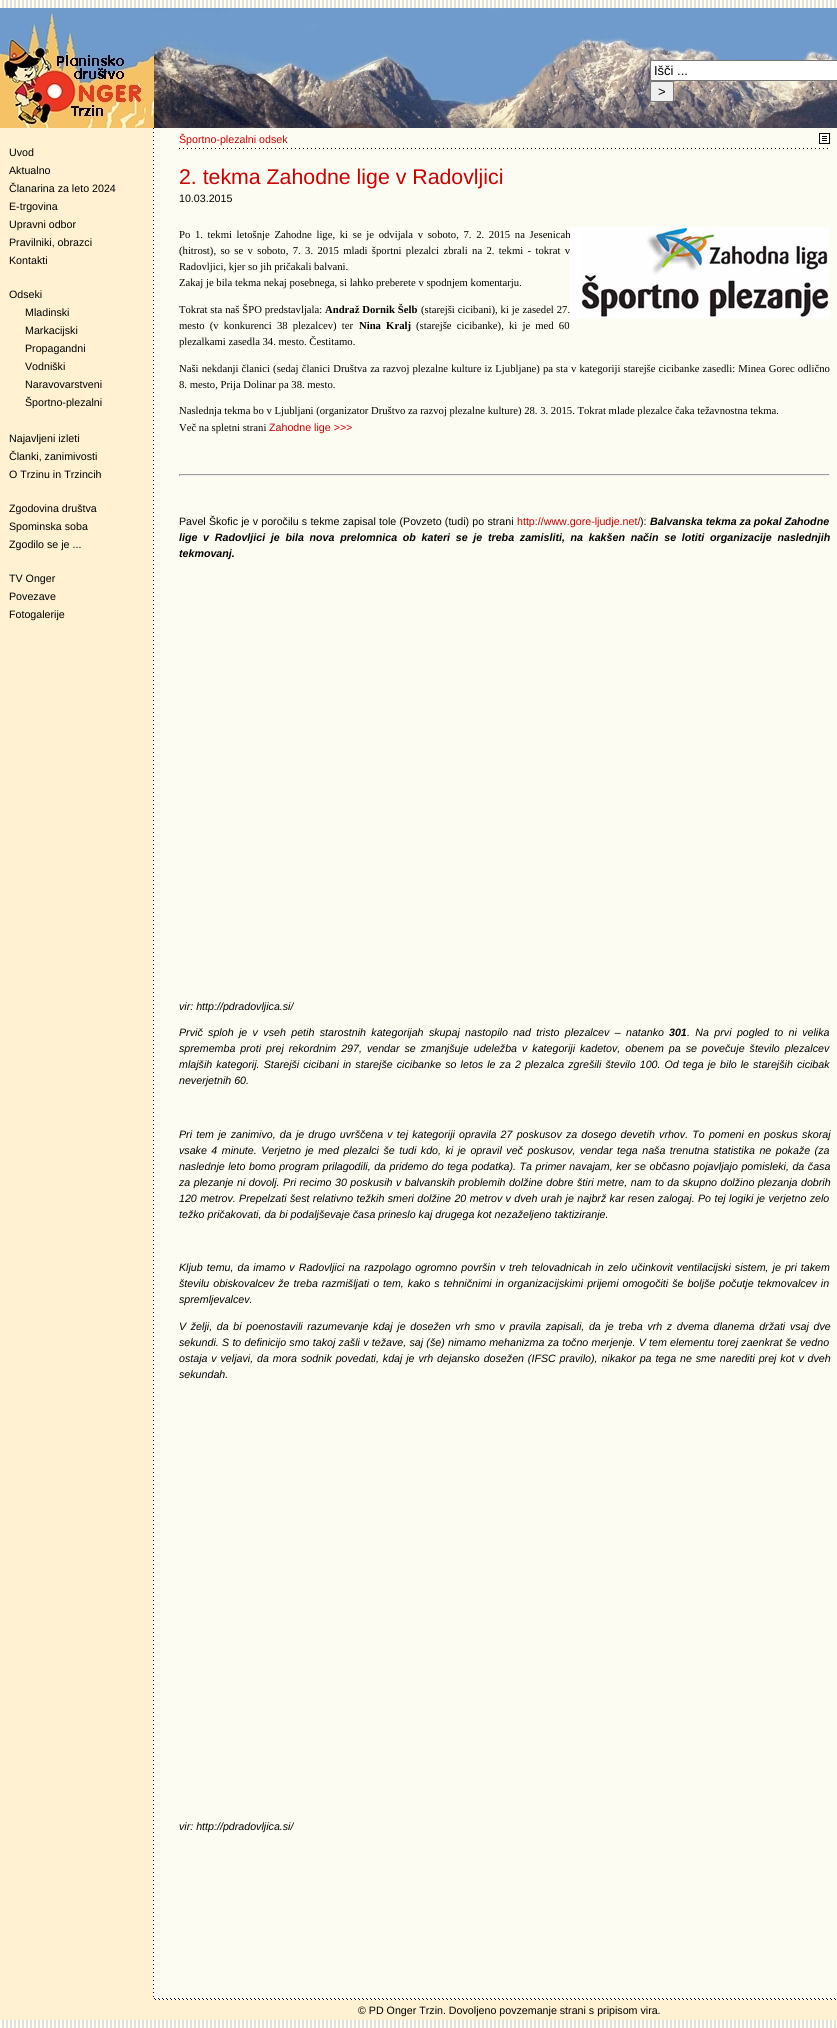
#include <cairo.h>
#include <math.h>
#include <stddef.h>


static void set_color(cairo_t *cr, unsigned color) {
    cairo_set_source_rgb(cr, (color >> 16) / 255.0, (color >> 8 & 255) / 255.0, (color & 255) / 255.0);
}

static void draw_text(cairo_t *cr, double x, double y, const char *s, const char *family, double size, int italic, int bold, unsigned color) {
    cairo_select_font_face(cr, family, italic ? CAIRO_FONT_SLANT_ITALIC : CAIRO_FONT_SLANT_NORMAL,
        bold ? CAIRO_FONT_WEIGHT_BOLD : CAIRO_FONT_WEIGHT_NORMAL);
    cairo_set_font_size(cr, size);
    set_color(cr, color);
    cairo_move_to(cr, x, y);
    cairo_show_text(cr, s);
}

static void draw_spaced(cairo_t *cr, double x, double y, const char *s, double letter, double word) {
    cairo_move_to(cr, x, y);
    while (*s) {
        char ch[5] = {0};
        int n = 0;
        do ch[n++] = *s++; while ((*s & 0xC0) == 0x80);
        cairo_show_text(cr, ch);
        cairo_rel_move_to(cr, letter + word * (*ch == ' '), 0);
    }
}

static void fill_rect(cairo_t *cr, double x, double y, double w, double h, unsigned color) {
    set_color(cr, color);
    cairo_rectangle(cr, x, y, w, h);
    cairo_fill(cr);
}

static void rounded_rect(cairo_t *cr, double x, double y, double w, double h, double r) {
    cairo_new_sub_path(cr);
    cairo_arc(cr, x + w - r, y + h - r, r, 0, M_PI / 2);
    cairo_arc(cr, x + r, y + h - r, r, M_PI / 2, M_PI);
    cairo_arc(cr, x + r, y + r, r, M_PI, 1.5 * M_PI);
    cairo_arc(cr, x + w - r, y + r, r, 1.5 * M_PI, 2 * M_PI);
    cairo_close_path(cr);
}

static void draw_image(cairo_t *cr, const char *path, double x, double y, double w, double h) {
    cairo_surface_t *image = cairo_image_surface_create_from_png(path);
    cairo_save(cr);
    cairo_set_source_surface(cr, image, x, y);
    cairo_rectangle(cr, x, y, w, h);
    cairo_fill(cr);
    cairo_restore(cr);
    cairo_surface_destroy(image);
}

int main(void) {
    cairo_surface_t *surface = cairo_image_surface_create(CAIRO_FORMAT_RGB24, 837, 2028);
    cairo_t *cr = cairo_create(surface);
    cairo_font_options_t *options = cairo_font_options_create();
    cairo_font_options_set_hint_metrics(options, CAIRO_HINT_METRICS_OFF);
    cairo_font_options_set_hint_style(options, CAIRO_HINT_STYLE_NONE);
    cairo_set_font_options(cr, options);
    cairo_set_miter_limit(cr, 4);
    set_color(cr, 0xFFFFF0);
    cairo_paint(cr);
    draw_image(cr, "assets/img1.png", 1, 0, 835, 2028);
    fill_rect(cr, 153, 129, 684, 1871, 0xFFFFFF);
    draw_image(cr, "assets/img2.png", 0, 8, 837, 120);
    rounded_rect(cr, 650.5, 60.5, 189, 20, 1.5);
    cairo_fill_preserve(cr);
    set_color(cr, 0x767676);
    cairo_set_line_width(cr, 1);
    cairo_stroke(cr);
    draw_text(cr, 654, 75, "Išči ...", "Liberation Sans", 13, 0, 0, 0x000000);
    set_color(cr, 0xEFEFEF);
    rounded_rect(cr, 650.5, 81.5, 23, 20, 1.5);
    cairo_fill_preserve(cr);
    set_color(cr, 0x767676);
    cairo_stroke(cr);
    draw_text(cr, 658, 96, ">", "Liberation Sans", 13, 0, 0, 0x000000);
    draw_image(cr, "assets/img3.png", 153, 128, 1, 1869);
    fill_rect(cr, 154, 128, 683, 1870, 0xFDFCF2);
    fill_rect(cr, 0, 128, 153, 1870, 0xFFF1D1);
    draw_text(cr, 9, 156, "Uvod", "Liberation Sans", 10.67, 0, 0, 0x000000);
    draw_text(cr, 9, 174, "Aktualno", "Liberation Sans", 10.67, 0, 0, 0x000000);
    draw_text(cr, 9, 192, "Članarina za leto 2024", "Liberation Sans", 10.67, 0, 0, 0x000000);
    draw_text(cr, 9, 210, "E-trgovina", "Liberation Sans", 10.67, 0, 0, 0x000000);
    draw_text(cr, 9, 228, "Upravni odbor", "Liberation Sans", 10.67, 0, 0, 0x000000);
    draw_text(cr, 9, 246, "Pravilniki, obrazci", "Liberation Sans", 10.67, 0, 0, 0x000000);
    draw_text(cr, 9, 264, "Kontakti", "Liberation Sans", 10.67, 0, 0, 0x000000);
    draw_text(cr, 9, 298, "Odseki", "Liberation Sans", 10.67, 0, 0, 0x000000);
    draw_text(cr, 25, 316, "Mladinski", "Liberation Sans", 10.67, 0, 0, 0x000000);
    draw_text(cr, 25, 334, "Markacijski", "Liberation Sans", 10.67, 0, 0, 0x000000);
    draw_text(cr, 25, 352, "Propagandni", "Liberation Sans", 10.67, 0, 0, 0x000000);
    draw_text(cr, 25, 370, "Vodniški", "Liberation Sans", 10.67, 0, 0, 0x000000);
    draw_text(cr, 25, 388, "Naravovarstveni", "Liberation Sans", 10.67, 0, 0, 0x000000);
    draw_text(cr, 25, 406, "Športno-plezalni", "Liberation Sans", 10.67, 0, 0, 0x000000);
    draw_text(cr, 9, 442, "Najavljeni izleti", "Liberation Sans", 10.67, 0, 0, 0x000000);
    draw_text(cr, 9, 460, "Članki, zanimivosti", "Liberation Sans", 10.67, 0, 0, 0x000000);
    draw_text(cr, 9, 478, "O Trzinu in Trzincih", "Liberation Sans", 10.67, 0, 0, 0x000000);
    draw_text(cr, 9, 512, "Zgodovina društva", "Liberation Sans", 10.67, 0, 0, 0x000000);
    draw_text(cr, 9, 530, "Spominska soba", "Liberation Sans", 10.67, 0, 0, 0x000000);
    draw_text(cr, 9, 548, "Zgodilo se je ...", "Liberation Sans", 10.67, 0, 0, 0x000000);
    draw_text(cr, 9, 582, "TV Onger", "Liberation Sans", 10.67, 0, 0, 0x000000);
    draw_text(cr, 9, 600, "Povezave", "Liberation Sans", 10.67, 0, 0, 0x000000);
    draw_text(cr, 9, 618, "Fotogalerije", "Liberation Sans", 10.67, 0, 0, 0x000000);
    draw_text(cr, 179, 143, "Športno-plezalni odsek", "Liberation Sans", 10.67, 0, 0, 0xCC0000);
    draw_image(cr, "assets/img4.png", 819, 133, 11, 11);
    draw_image(cr, "assets/img5.png", 179, 148, 649, 1);
    draw_text(cr, 179, 184, "2. tekma Zahodne lige v Radovljici", "Liberation Sans", 21.3, 0, 0, 0xCC0000);
    draw_text(cr, 179, 202, "10.03.2015", "Liberation Sans", 10.67, 0, 0, 0x000000);
    cairo_select_font_face(cr, "Liberation Serif", CAIRO_FONT_SLANT_NORMAL, CAIRO_FONT_WEIGHT_NORMAL);
    draw_spaced(cr, 179, 238, "Po 1. tekmi letošnje Zahodne lige, ki se je odvijala v soboto, 7. 2. 2015 na Jesenicah", 0, 2);
    draw_image(cr, "assets/img6.png", 570, 227, 260, 92);
    draw_spaced(cr, 179, 254, "(hitrost), so se v soboto, 7. 3. 2015 mladi športni plezalci zbrali na 2. tekmi - tokrat v", 0, 1.7);
    draw_text(cr, 179, 270, "Radovljici, kjer so jih pričakali balvani.", "Liberation Serif", 10.67, 0, 0, 0x000000);
    draw_text(cr, 179, 286, "Zakaj je bila tekma nekaj posebnega, si lahko preberete v spodnjem komentarju.", "Liberation Serif", 10.67, 0, 0, 0x000000);
    draw_spaced(cr, 179, 313, "Tokrat sta naš ŠPO predstavljala:", 0, 0.25);
    cairo_select_font_face(cr, "Liberation Serif", CAIRO_FONT_SLANT_NORMAL, CAIRO_FONT_WEIGHT_BOLD);
    draw_spaced(cr, 325, 313, "Andraž Dornik Šelb", 0, 0.25);
    cairo_select_font_face(cr, "Liberation Serif", CAIRO_FONT_SLANT_NORMAL, CAIRO_FONT_WEIGHT_NORMAL);
    draw_spaced(cr, 421, 313, "(starejši cicibani), ki je zasedel 27.", 0, 0.25);
    draw_spaced(cr, 179, 329, "mesto (v konkurenci 38 plezalcev) ter", 0, 2.5);
    cairo_select_font_face(cr, "Liberation Serif", CAIRO_FONT_SLANT_NORMAL, CAIRO_FONT_WEIGHT_BOLD);
    draw_spaced(cr, 359, 329, "Nina Kralj", 0, 2.5);
    cairo_select_font_face(cr, "Liberation Serif", CAIRO_FONT_SLANT_NORMAL, CAIRO_FONT_WEIGHT_NORMAL);
    draw_spaced(cr, 416, 329, "(starejše cicibanke), ki je med 60", 0, 2.5);
    draw_text(cr, 179, 345, "plezalkami zasedla 34. mesto. Čestitamo.", "Liberation Serif", 10.67, 0, 0, 0x000000);
    draw_spaced(cr, 179, 372, "Naši nekdanji članici (sedaj članici Društva za razvoj plezalne kulture iz Ljubljane) pa sta v kategoriji starejše cicibanke zasedli: Minea Gorec odlično", 0, 0.45);
    draw_text(cr, 179, 388, "8. mesto, Prija Dolinar pa 38. mesto.", "Liberation Serif", 10.67, 0, 0, 0x000000);
    draw_text(cr, 179, 414, "Naslednja tekma bo v Ljubljani (organizator Društvo za razvoj plezalne kulture) 28. 3. 2015. Tokrat mlade plezalce čaka težavnostna tekma.", "Liberation Serif", 10.67, 0, 0, 0x000000);
    draw_text(cr, 179, 431, "Več na spletni strani", "Liberation Serif", 10.67, 0, 0, 0x000000);
    draw_text(cr, 269, 431, "Zahodne lige >>>", "Liberation Sans", 10.67, 0, 0, 0xCC0000);
    fill_rect(cr, 179, 474, 651, 1, 0x9F9F9F);
    fill_rect(cr, 829, 474, 1, 2, 0xEEEEEE);
    fill_rect(cr, 179, 475, 651, 1, 0xEEEEEE);
    fill_rect(cr, 179, 474, 1, 2, 0x9F9F9F);
    set_color(cr, 0x000000);
    draw_spaced(cr, 179, 525, "Pavel Škofic je v poročilu s tekme zapisal tole (Povzeto (tudi) po strani", 0, 0.25);
    draw_text(cr, 517, 525, "http://www.gore-ljudje.net/", "Liberation Sans", 10.67, 0, 0, 0xCC0000);
    draw_text(cr, 640, 525, "):", "Liberation Sans", 10.67, 0, 0, 0x000000);
    draw_text(cr, 650, 525, "Balvanska tekma za pokal Zahodne", "Liberation Sans", 10.67, 1, 1, 0x000000);
    draw_spaced(cr, 179, 541, "lige v Radovljici je bila nova prelomnica ob kateri se je treba zamisliti, na kakšen način se lotiti organizacije naslednjih", 0, 2.75);
    draw_text(cr, 179, 557, "tekmovanj.", "Liberation Sans", 10.67, 1, 1, 0x000000);
    draw_text(cr, 179, 1010, "vir: http://pdradovljica.si/", "Liberation Sans", 10.67, 1, 0, 0x000000);
    draw_spaced(cr, 179, 1036, "Prvič sploh je v vseh petih starostnih kategorijah skupaj nastopilo nad tristo plezalcev – natanko", 0, 2.4);
    draw_text(cr, 669, 1036, "301", "Liberation Sans", 10.67, 1, 1, 0x000000);
    cairo_select_font_face(cr, "Liberation Sans", CAIRO_FONT_SLANT_ITALIC, CAIRO_FONT_WEIGHT_NORMAL);
    draw_spaced(cr, 687, 1036, ". Na prvi pogled to ni velika", 0, 2.4);
    draw_spaced(cr, 179, 1052, "sprememba proti prej rekordnim 297, vendar se zmanjšuje udeležba v kategoriji kadetov, obenem pa se povečuje število plezalcev", 0, 2);
    draw_spaced(cr, 179, 1068, "mlajših kategorij. Starejši cicibani in starejše cicibanke so letos le za 2 plezalca zgrešili število 100. Od tega je bilo le starejših cicibak", 0, 1.1);
    draw_text(cr, 179, 1084, "neverjetnih 60.", "Liberation Sans", 10.67, 1, 0, 0x000000);
    draw_spaced(cr, 179, 1138, "Pri tem je zanimivo, da je drugo uvrščena v tej kategoriji opravila 27 poskusov za dosego devetih vrhov. To pomeni en poskus skoraj", 0, 1.2);
    draw_spaced(cr, 179, 1154, "vsake 4 minute. Verjetno je med plezalci še tudi kdo, ki je opravil več poskusov, vendar tega naša trenutna statistika ne pokaže (za", 0, 1.5);
    draw_spaced(cr, 179, 1170, "naslednje leto bomo program prilagodili, da pridemo do tega podatka). Ta primer navajam, ker se občasno pojavljajo pomisleki, da časa", 0, 0.6);
    draw_spaced(cr, 179, 1186, "za plezanje ni dovolj. Pri recimo 30 poskusih v balvanskih problemih dolžine dobre štiri metre, nam to da skupno dolžino plezanja dobrih", 0, 0.5);
    draw_spaced(cr, 179, 1202, "120 metrov. Prepelzati šest relativno težkih smeri dolžine 20 metrov v dveh urah je najbrž kar resen zalogaj. Po tej logiki je verjetno zelo", 0, 0.4);
    draw_text(cr, 179, 1218, "težko pričakovati, da bi podaljševaje časa prineslo kaj drugega kot nezaželjeno taktiziranje.", "Liberation Sans", 10.67, 1, 0, 0x000000);
    draw_spaced(cr, 179, 1271, "Kljub temu, da imamo v Radovljici na razpolago ogromno površin v treh telovadnicah in zelo učinkovit ventilacijski sistem, je pri takem", 0, 1.05);
    draw_spaced(cr, 179, 1287, "številu obiskovalcev že treba razmišljati o tem, kako s tehničnimi in organizacijskimi prijemi omogočiti še boljše počutje tekmovalcev in", 0, 1);
    draw_text(cr, 179, 1303, "spremljevalcev.", "Liberation Sans", 10.67, 1, 0, 0x000000);
    draw_spaced(cr, 179, 1330, "V želji, da bi poenostavili razumevanje kdaj je dosežen vrh smo v pravila zapisali, da je treba vrh z dvema dlanema držati vsaj dve", 0, 1.7);
    draw_spaced(cr, 179, 1346, "sekundi. S to definicijo smo takoj zašli v težave, saj (še) nimamo mehanizma za točno merjenje. V tem elementu torej zaenkrat še vedno", 0, 0.3);
    draw_spaced(cr, 179, 1362, "ostaja v veljavi, da mora sodnik povedati, kdaj je vrh dejansko dosežen (IFSC pravilo), nikakor pa tega ne sme narediti prej kot v dveh", 0, 0.9);
    draw_text(cr, 179, 1378, "sekundah.", "Liberation Sans", 10.67, 1, 0, 0x000000);
    draw_text(cr, 179, 1830, "vir: http://pdradovljica.si/", "Liberation Sans", 10.67, 1, 0, 0x000000);
    fill_rect(cr, 0, 1998, 154, 22, 0xFFF1D1);
    draw_image(cr, "assets/img7.png", 154, 1998, 682, 2);
    fill_rect(cr, 154, 2000, 683, 20, 0xFFF1D1);
    draw_text(cr, 358, 2014, "© PD Onger Trzin. Dovoljeno povzemanje strani s pripisom vira.", "Liberation Sans", 10.67, 0, 0, 0x000000);
    cairo_surface_write_to_png(surface, "output.png");
    cairo_font_options_destroy(options);
    cairo_destroy(cr);
    cairo_surface_destroy(surface);
    return 0;
}
